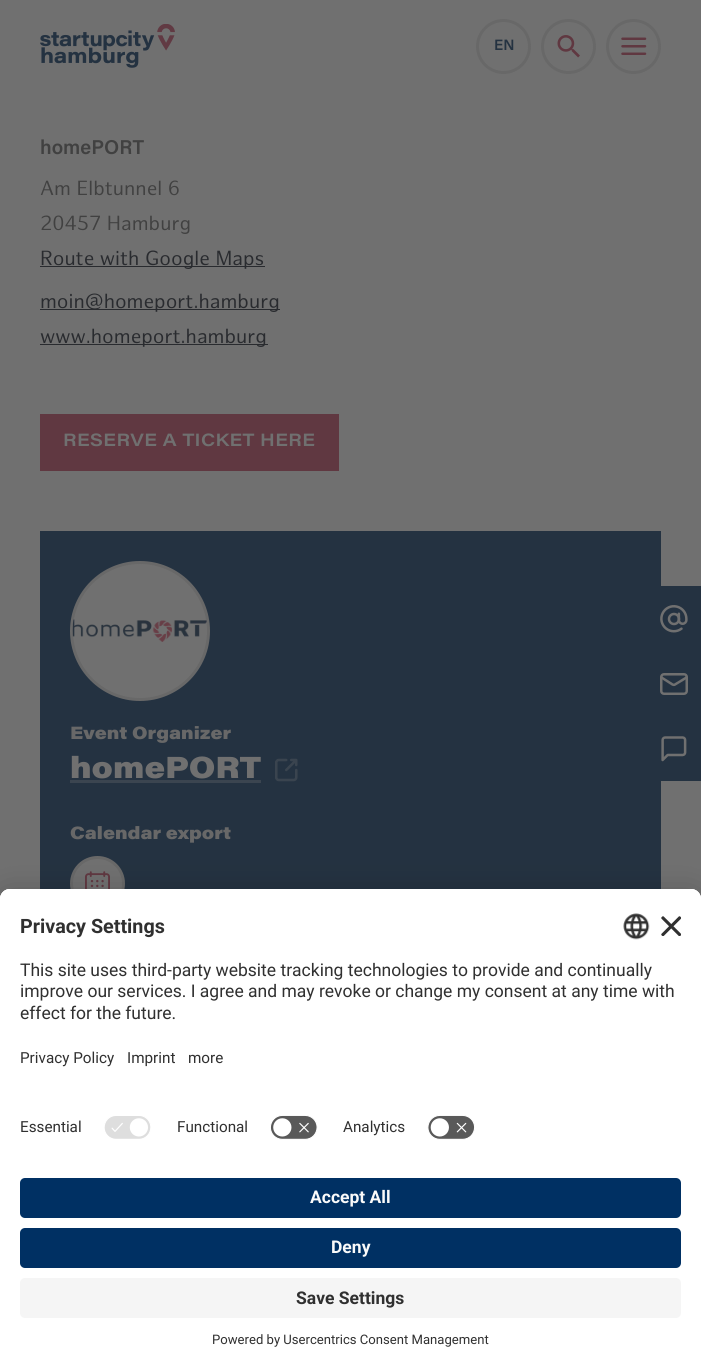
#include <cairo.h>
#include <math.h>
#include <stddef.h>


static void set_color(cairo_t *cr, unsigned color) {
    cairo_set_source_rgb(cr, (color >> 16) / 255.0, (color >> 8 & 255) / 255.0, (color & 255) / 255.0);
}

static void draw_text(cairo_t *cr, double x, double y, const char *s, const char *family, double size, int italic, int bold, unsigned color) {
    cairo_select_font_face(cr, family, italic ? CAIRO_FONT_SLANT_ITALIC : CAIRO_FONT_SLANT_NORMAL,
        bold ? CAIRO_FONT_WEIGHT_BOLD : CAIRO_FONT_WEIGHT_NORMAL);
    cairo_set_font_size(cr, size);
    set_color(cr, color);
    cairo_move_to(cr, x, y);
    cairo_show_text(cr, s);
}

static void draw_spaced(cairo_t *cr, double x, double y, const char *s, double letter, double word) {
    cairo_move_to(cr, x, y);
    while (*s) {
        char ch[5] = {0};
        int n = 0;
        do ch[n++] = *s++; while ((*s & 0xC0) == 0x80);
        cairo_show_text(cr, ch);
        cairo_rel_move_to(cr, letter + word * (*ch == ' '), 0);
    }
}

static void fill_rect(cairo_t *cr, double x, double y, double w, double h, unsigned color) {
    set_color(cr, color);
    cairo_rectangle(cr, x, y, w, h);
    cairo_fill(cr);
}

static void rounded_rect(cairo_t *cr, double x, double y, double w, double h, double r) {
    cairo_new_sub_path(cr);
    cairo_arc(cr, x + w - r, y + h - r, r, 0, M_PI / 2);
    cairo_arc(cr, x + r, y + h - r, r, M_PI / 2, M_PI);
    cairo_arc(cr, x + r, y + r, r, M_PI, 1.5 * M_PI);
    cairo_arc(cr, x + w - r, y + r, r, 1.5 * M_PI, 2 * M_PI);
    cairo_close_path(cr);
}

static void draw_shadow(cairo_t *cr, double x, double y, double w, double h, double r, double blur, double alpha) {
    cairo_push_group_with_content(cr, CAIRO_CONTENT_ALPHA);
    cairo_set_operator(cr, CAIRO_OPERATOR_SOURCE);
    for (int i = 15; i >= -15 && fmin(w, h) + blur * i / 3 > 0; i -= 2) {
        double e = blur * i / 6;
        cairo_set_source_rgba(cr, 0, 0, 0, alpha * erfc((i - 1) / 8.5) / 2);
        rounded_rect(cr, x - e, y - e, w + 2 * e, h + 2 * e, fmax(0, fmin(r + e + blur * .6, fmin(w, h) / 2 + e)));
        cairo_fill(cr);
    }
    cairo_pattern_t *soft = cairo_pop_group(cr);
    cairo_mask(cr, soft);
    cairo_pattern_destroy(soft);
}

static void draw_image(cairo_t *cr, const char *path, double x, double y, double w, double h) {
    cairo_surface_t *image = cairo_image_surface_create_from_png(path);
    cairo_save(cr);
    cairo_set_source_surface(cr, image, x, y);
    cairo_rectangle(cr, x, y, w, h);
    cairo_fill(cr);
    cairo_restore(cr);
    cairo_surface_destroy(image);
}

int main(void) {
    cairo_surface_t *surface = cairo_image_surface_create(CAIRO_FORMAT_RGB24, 701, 1367);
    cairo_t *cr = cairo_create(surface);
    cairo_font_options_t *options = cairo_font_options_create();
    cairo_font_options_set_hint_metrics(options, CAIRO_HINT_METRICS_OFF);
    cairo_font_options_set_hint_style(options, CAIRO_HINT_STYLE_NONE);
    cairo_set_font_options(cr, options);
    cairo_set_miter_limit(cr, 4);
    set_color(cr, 0x707070);
    cairo_paint(cr);
    draw_image(cr, "assets/img1.png", 40, 24, 135, 44);
    cairo_arc(cr, 503.5, 46.5, 26, 0, 2 * M_PI);
    set_color(cr, 0x686868);
    cairo_set_line_width(cr, 3);
    cairo_stroke(cr);
    draw_text(cr, 494, 50, "EN", "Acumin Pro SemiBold", 15, 0, 0, 0x243241);
    cairo_new_path(cr);
    cairo_arc(cr, 568.5, 46.5, 26, 0, 2 * M_PI);
    set_color(cr, 0x686868);
    cairo_stroke(cr);
    draw_image(cr, "assets/img2.png", 557, 35, 23, 23);
    cairo_arc(cr, 633.5, 46.5, 26, 0, 2 * M_PI);
    cairo_stroke(cr);
    draw_image(cr, "assets/img3.png", 621, 37, 26, 18);
    draw_text(cr, 40, 154, "homePORT", "Acumin Pro SemiBold", 20, 0, 0, 0x414141);
    draw_text(cr, 40, 195, "Am Elbtunnel 6", "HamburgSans", 20, 0, 0, 0x414141);
    draw_text(cr, 40, 230, "20457 Hamburg", "HamburgSans", 20, 0, 0, 0x414141);
    fill_rect(cr, 40, 266, 225, 1, 0x292B2F);
    draw_text(cr, 40, 265, "Route with Google Maps", "HamburgSans", 20, 0, 0, 0x292B2F);
    fill_rect(cr, 40, 309, 240, 1, 0x292B2F);
    draw_text(cr, 40, 308, "moin@homeport.hamburg", "HamburgSans", 20, 0, 0, 0x292B2F);
    fill_rect(cr, 40, 344, 228, 1, 0x292B2F);
    draw_text(cr, 40, 343, "www.homeport.hamburg", "HamburgSans", 20, 0, 0, 0x292B2F);
    fill_rect(cr, 40, 414, 299, 57, 0x603841);
    cairo_select_font_face(cr, "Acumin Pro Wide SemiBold", CAIRO_FONT_SLANT_NORMAL, CAIRO_FONT_WEIGHT_NORMAL);
    cairo_set_font_size(cr, 17.5);
    set_color(cr, 0x707070);
    draw_spaced(cr, 63, 446, "RESERVE A TICKET HERE", 0.4, 0);
    fill_rect(cr, 40, 531, 621, 358, 0x243241);
    set_color(cr, 0x707070);
    cairo_new_path(cr);
    cairo_arc(cr, 140, 631, 68.5, 0, 2 * M_PI);
    cairo_fill_preserve(cr);
    set_color(cr, 0x686868);
    cairo_stroke(cr);
    draw_image(cr, "assets/img4.png", 72, 619, 135, 23);
    draw_text(cr, 70, 739, "Event Organizer", "Acumin Pro Wide Black", 17.5, 0, 0, 0x686868);
    draw_text(cr, 70, 778, "homePORT", "Acumin Pro Wide Black", 30, 0, 0, 0x707070);
    fill_rect(cr, 70, 780, 191, 3, 0x3B4550);
    draw_image(cr, "assets/img5.png", 275, 758, 23, 24);
    draw_text(cr, 70, 839, "Calendar export", "Acumin Pro Wide Black", 17.5, 0, 0, 0x686868);
    set_color(cr, 0x707070);
    cairo_new_path(cr);
    cairo_arc(cr, 97.5, 883.5, 26, 0, 2 * M_PI);
    cairo_fill_preserve(cr);
    set_color(cr, 0x686868);
    cairo_stroke(cr);
    draw_image(cr, "assets/img6.png", 85, 871, 25, 18);
    fill_rect(cr, 661, 586, 40, 195, 0x243241);
    draw_image(cr, "assets/img7.png", 660, 605, 28, 28);
    rounded_rect(cr, 661.25, 674.25, 25.5, 19.5, 2.75);
    set_color(cr, 0x707070);
    cairo_set_line_width(cr, 2.5);
    cairo_stroke(cr);
    cairo_new_path(cr);
    cairo_move_to(cr, 686.5, 677.5);
    cairo_line_to(cr, 675, 684.5);
    cairo_curve_to(cr, 674.5, 685, 673.5, 685, 672.5, 684.5);
    cairo_line_to(cr, 661.5, 677.5);
    cairo_set_line_cap(cr, CAIRO_LINE_CAP_ROUND);
    cairo_set_line_join(cr, CAIRO_LINE_JOIN_ROUND);
    cairo_stroke(cr);
    draw_image(cr, "assets/img8.png", 661, 736, 26, 26);
    set_color(cr, 0x000000);
    draw_shadow(cr, 0, 895, 701, 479, 10, 16, 0.22);
    set_color(cr, 0xFFFFFF);
    cairo_new_path(cr);
    cairo_move_to(cr, 10, 889);
    cairo_line_to(cr, 691, 889);
    cairo_curve_to(cr, 696.5, 889, 701, 893.5, 701, 899);
    cairo_line_to(cr, 701, 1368);
    cairo_line_to(cr, 0, 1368);
    cairo_line_to(cr, 0, 899);
    cairo_curve_to(cr, 0, 893.5, 4.5, 889, 10, 889);
    cairo_close_path(cr);
    cairo_fill(cr);
    cairo_new_path(cr);
    cairo_move_to(cr, 10, 889);
    cairo_line_to(cr, 691, 889);
    cairo_curve_to(cr, 696.5, 889, 701, 893.5, 701, 899);
    cairo_line_to(cr, 701, 1163);
    cairo_line_to(cr, 0, 1163);
    cairo_line_to(cr, 0, 899);
    cairo_curve_to(cr, 0, 893.5, 4.5, 889, 10, 889);
    cairo_close_path(cr);
    cairo_fill(cr);
    cairo_new_path(cr);
    cairo_move_to(cr, 10, 889);
    cairo_line_to(cr, 691, 889);
    cairo_curve_to(cr, 696.5, 889, 701, 893.5, 701, 899);
    cairo_line_to(cr, 701, 1108);
    cairo_line_to(cr, 0, 1108);
    cairo_line_to(cr, 0, 899);
    cairo_curve_to(cr, 0, 893.5, 4.5, 889, 10, 889);
    cairo_close_path(cr);
    cairo_fill(cr);
    draw_text(cr, 20, 933, "Privacy Settings", "Roboto", 19.75, 0, 1, 0x303030);
    draw_image(cr, "assets/img9.png", 623, 913, 27, 27);
    draw_image(cr, "assets/img10.png", 661, 916, 20, 20);
    draw_text(cr, 20, 976, "This site uses third-party website tracking technologies to provide and continually", "Roboto", 17.5, 0, 0, 0x303030);
    draw_text(cr, 20, 997, "improve our services. I agree and may revoke or change my consent at any time with", "Roboto", 17.5, 0, 0, 0x303030);
    draw_text(cr, 20, 1019, "effect for the future.", "Roboto", 17.5, 0, 0, 0x303030);
    draw_text(cr, 20, 1063, "Privacy Policy", "Roboto", 15.25, 0, 0, 0x303030);
    draw_text(cr, 127, 1063, "Imprint", "Roboto", 15.25, 0, 0, 0x303030);
    draw_text(cr, 188, 1063, "more", "Roboto", 15.25, 0, 0, 0x303030);
    draw_text(cr, 20, 1132, "Essential", "Roboto", 15.25, 0, 0, 0x303030);
    draw_image(cr, "assets/img11.png", 104, 1116, 47, 23);
    draw_text(cr, 177, 1132, "Functional", "Roboto", 15.25, 0, 0, 0x303030);
    draw_image(cr, "assets/img12.png", 270, 1115, 48, 25);
    draw_text(cr, 343, 1132, "Analytics", "Roboto", 15.25, 0, 0, 0x303030);
    draw_image(cr, "assets/img13.png", 427, 1115, 48, 25);
    set_color(cr, 0x003063);
    rounded_rect(cr, 20, 1178, 661, 40, 5);
    cairo_fill(cr);
    draw_text(cr, 310, 1203, "Accept All", "Roboto", 17.5, 0, 1, 0xFAFAFA);
    set_color(cr, 0x003063);
    rounded_rect(cr, 20, 1228, 661, 40, 5);
    cairo_fill(cr);
    draw_text(cr, 331, 1253, "Deny", "Roboto", 17.5, 0, 1, 0xFAFAFA);
    set_color(cr, 0xF5F5F5);
    rounded_rect(cr, 20, 1278, 661, 40, 5);
    cairo_fill(cr);
    draw_text(cr, 296, 1304, "Save Settings", "Roboto", 17.5, 0, 1, 0x303030);
    draw_text(cr, 212, 1344, "Powered by Usercentrics Consent Management", "Roboto", 13.1, 0, 0, 0x303030);
    cairo_surface_write_to_png(surface, "output.png");
    cairo_font_options_destroy(options);
    cairo_destroy(cr);
    cairo_surface_destroy(surface);
    return 0;
}
